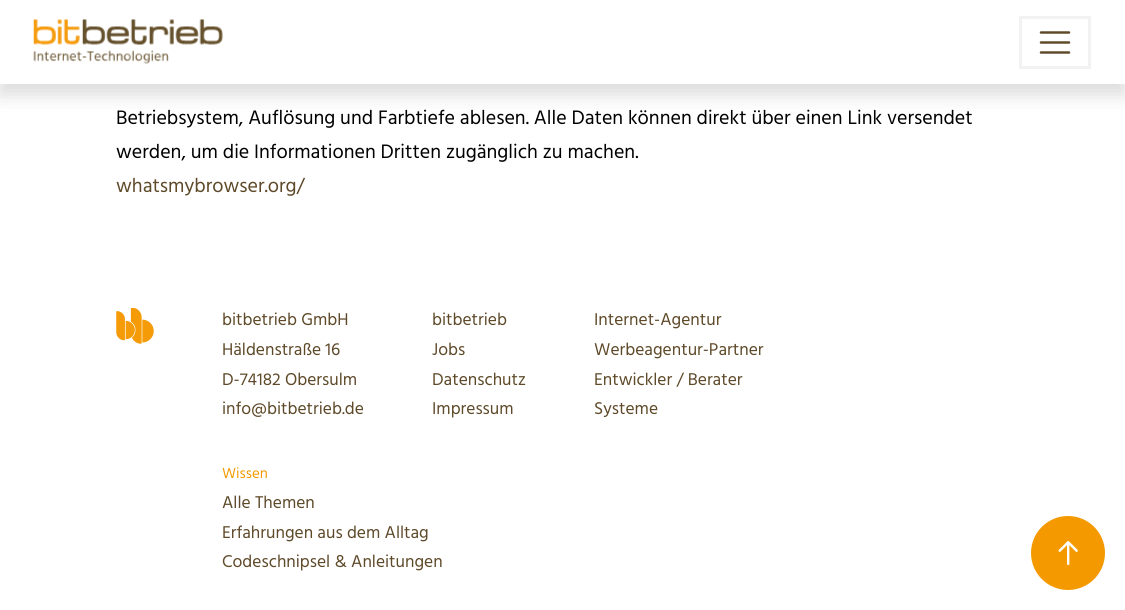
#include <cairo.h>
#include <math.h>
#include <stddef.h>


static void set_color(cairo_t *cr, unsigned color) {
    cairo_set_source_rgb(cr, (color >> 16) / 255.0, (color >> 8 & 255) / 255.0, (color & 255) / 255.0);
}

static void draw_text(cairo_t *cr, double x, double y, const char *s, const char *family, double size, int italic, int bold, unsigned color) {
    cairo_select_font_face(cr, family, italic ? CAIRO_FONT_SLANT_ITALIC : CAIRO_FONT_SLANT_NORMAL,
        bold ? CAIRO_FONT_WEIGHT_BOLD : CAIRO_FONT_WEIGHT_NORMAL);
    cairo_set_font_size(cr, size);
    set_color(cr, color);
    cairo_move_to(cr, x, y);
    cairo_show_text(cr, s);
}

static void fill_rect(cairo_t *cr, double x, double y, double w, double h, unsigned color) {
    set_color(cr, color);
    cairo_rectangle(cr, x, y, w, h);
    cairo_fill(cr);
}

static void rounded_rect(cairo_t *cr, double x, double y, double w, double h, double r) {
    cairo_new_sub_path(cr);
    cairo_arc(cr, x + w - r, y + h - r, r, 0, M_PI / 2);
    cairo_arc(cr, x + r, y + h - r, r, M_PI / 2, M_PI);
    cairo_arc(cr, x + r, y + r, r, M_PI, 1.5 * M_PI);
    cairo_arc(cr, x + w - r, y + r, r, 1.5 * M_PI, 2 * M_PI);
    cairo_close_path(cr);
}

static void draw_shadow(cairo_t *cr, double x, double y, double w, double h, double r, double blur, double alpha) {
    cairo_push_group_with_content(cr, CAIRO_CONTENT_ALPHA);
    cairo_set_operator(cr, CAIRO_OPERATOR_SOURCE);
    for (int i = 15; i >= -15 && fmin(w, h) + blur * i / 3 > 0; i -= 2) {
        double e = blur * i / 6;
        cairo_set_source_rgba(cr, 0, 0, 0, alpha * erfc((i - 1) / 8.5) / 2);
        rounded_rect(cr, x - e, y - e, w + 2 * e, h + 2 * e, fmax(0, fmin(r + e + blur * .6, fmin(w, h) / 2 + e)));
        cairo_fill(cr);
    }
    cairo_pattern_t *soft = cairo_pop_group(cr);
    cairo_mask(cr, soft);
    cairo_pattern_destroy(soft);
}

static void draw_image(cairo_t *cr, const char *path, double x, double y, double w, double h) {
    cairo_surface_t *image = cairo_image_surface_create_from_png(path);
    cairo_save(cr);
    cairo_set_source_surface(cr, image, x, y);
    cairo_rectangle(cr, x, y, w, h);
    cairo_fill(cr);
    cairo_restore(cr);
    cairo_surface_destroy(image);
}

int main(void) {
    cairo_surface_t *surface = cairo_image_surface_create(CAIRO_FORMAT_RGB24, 1125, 610);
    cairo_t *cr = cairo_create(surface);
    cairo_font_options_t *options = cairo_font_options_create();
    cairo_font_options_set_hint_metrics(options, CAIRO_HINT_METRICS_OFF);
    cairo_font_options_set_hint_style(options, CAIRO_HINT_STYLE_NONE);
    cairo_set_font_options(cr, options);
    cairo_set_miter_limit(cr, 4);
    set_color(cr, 0xFFFFFF);
    cairo_paint(cr);
    set_color(cr, 0x000000);
    draw_shadow(cr, 0, 10, 1125, 84, 0, 10, 0.15);
    fill_rect(cr, 0, 0, 1125, 84, 0xFFFFFF);
    draw_image(cr, "assets/img1.png", 33, 19, 190, 45);
    cairo_rectangle(cr, 1020.5, 17.5, 69, 50);
    set_color(cr, 0xF2F2F2);
    cairo_set_line_width(cr, 3);
    cairo_stroke(cr);
    cairo_new_path(cr);
    cairo_move_to(cr, 1041, 32.5);
    cairo_line_to(cr, 1069, 32.5);
    cairo_move_to(cr, 1041, 42.5);
    cairo_line_to(cr, 1069, 42.5);
    cairo_move_to(cr, 1041, 52.5);
    cairo_line_to(cr, 1069, 52.5);
    set_color(cr, 0x5E4929);
    cairo_set_line_width(cr, 2.5);
    cairo_set_line_cap(cr, CAIRO_LINE_CAP_ROUND);
    cairo_stroke(cr);
    draw_text(cr, 116, 124, "Betriebsystem, Auflösung und Farbtiefe ablesen. Alle Daten können direkt über einen Link versendet", "Hind", 20, 0, 0, 0x000000);
    draw_text(cr, 116, 158, "werden, um die Informationen Dritten zugänglich zu machen.", "Hind", 20, 0, 0, 0x000000);
    draw_text(cr, 116, 192, "whatsmybrowser.org/", "Hind", 20, 0, 0, 0x5E4929);
    draw_image(cr, "assets/img2.png", 116, 308, 38, 36);
    draw_text(cr, 222, 325, "bitbetrieb GmbH", "Hind", 17.5, 0, 0, 0x5E4929);
    draw_text(cr, 222, 355, "Häldenstraße 16", "Hind", 17.5, 0, 0, 0x5E4929);
    draw_text(cr, 222, 385, "D-74182 Obersulm", "Hind", 17.5, 0, 0, 0x5E4929);
    draw_text(cr, 222, 414, "info@bitbetrieb.de", "Hind", 17.5, 0, 0, 0x5E4929);
    draw_text(cr, 432, 325, "bitbetrieb", "Hind", 17.5, 0, 0, 0x5E4929);
    draw_text(cr, 432, 355, "Jobs", "Hind", 17.5, 0, 0, 0x5E4929);
    draw_text(cr, 432, 385, "Datenschutz", "Hind", 17.5, 0, 0, 0x5E4929);
    draw_text(cr, 432, 414, "Impressum", "Hind", 17.5, 0, 0, 0x5E4929);
    draw_text(cr, 594, 325, "Internet-Agentur", "Hind", 17.5, 0, 0, 0x5E4929);
    draw_text(cr, 594, 355, "Werbeagentur-Partner", "Hind", 17.5, 0, 0, 0x5E4929);
    draw_text(cr, 594, 385, "Entwickler / Berater", "Hind", 17.5, 0, 0, 0x5E4929);
    draw_text(cr, 594, 414, "Systeme", "Hind", 17.5, 0, 0, 0x5E4929);
    draw_text(cr, 222, 478, "Wissen", "Hind", 15, 0, 0, 0xF49A00);
    draw_text(cr, 222, 508, "Alle Themen", "Hind", 17.5, 0, 0, 0x5E4929);
    draw_text(cr, 222, 538, "Erfahrungen aus dem Alltag", "Hind", 17.5, 0, 0, 0x5E4929);
    draw_text(cr, 222, 567, "Codeschnipsel & Anleitungen", "Hind", 17.5, 0, 0, 0x5E4929);
    set_color(cr, 0xF49A00);
    cairo_new_path(cr);
    cairo_arc(cr, 1068, 553, 37, 0, 2 * M_PI);
    cairo_fill(cr);
    draw_image(cr, "assets/img3.png", 1058, 541, 20, 25);
    cairo_surface_write_to_png(surface, "output.png");
    cairo_font_options_destroy(options);
    cairo_destroy(cr);
    cairo_surface_destroy(surface);
    return 0;
}
